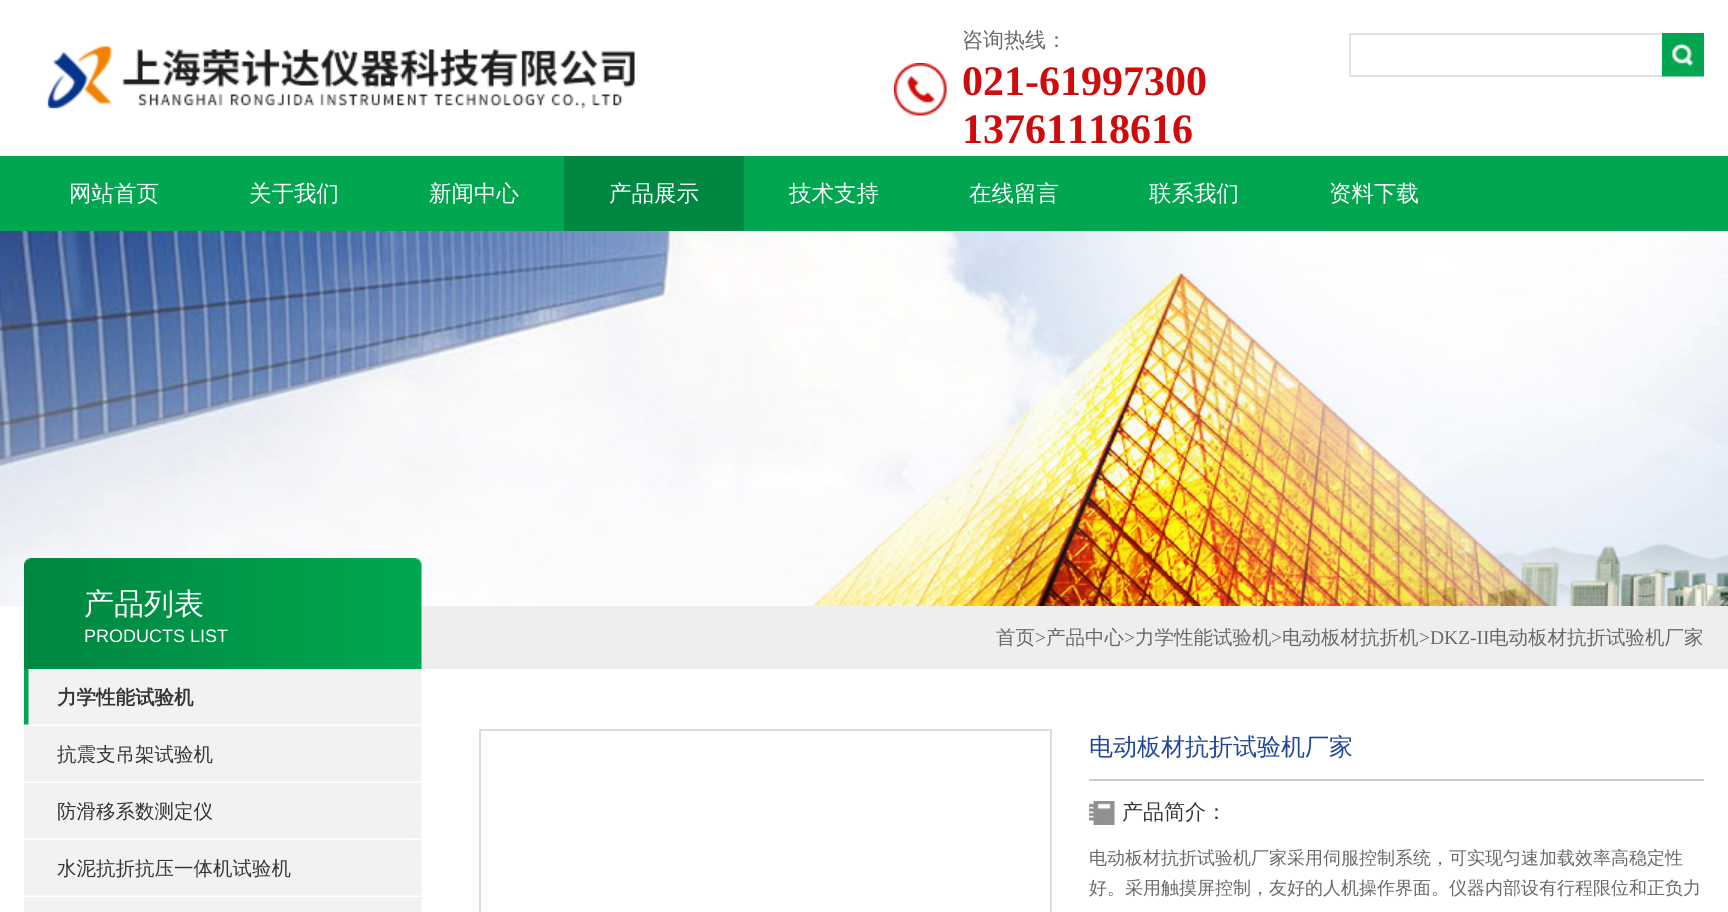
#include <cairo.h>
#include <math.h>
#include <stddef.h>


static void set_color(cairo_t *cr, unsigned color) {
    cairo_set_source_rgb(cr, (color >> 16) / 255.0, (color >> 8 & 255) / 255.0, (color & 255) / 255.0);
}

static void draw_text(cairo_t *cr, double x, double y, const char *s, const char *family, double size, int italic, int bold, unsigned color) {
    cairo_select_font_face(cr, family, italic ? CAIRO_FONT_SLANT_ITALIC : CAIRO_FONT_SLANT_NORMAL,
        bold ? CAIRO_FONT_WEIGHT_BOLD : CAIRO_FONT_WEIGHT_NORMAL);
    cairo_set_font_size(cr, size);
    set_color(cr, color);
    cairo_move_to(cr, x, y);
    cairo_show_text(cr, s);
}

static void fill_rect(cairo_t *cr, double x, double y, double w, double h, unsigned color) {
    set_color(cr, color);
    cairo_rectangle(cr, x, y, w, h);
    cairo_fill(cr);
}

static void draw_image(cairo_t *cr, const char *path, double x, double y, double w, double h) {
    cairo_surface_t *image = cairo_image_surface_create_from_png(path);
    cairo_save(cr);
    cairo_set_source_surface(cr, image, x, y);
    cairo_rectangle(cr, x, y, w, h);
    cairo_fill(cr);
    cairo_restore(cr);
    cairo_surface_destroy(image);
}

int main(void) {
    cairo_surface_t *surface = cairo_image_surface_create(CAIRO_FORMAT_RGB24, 1728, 912);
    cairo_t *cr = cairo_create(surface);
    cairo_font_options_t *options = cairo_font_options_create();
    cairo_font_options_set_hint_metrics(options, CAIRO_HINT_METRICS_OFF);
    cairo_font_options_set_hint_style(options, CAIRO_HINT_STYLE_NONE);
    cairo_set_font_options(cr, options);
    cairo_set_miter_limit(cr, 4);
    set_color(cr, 0xFFFFFF);
    cairo_paint(cr);
    draw_image(cr, "assets/img1.png", 421, 606, 1307, 63);
    draw_image(cr, "assets/img2.png", 47, 46, 588, 63);
    draw_image(cr, "assets/img3.png", 894, 63, 53, 53);
    draw_text(cr, 962, 47, "咨询热线：", "WenQuanYi Zen Hei Medium", 21, 0, 0, 0x686868);
    draw_text(cr, 962, 95, "021-61997300", "Liberation Serif", 42, 0, 1, 0xD00B0B);
    draw_text(cr, 962, 143, "13761118616", "Liberation Serif", 42, 0, 1, 0xD00B0B);
    fill_rect(cr, 1349, 33, 313, 2, 0xE1E1E1);
    fill_rect(cr, 1349, 75, 313, 2, 0xE1E1E1);
    fill_rect(cr, 1349, 33, 2, 44, 0xE1E1E1);
    draw_image(cr, "assets/img4.png", 1662, 33, 42, 44);
    fill_rect(cr, 0, 156, 1728, 75, 0x00A650);
    draw_text(cr, 69, 201, "网站首页", "WenQuanYi Zen Hei Medium", 22.5, 0, 0, 0xFFFFFF);
    draw_text(cr, 249, 201, "关于我们", "WenQuanYi Zen Hei Medium", 22.5, 0, 0, 0xFFFFFF);
    draw_text(cr, 429, 201, "新闻中心", "WenQuanYi Zen Hei Medium", 22.5, 0, 0, 0xFFFFFF);
    fill_rect(cr, 564, 156, 180, 75, 0x008742);
    draw_text(cr, 609, 201, "产品展示", "WenQuanYi Zen Hei Medium", 22.5, 0, 0, 0xFFFFFF);
    draw_text(cr, 789, 201, "技术支持", "WenQuanYi Zen Hei Medium", 22.5, 0, 0, 0xFFFFFF);
    draw_text(cr, 969, 201, "在线留言", "WenQuanYi Zen Hei Medium", 22.5, 0, 0, 0xFFFFFF);
    draw_text(cr, 1149, 201, "联系我们", "WenQuanYi Zen Hei Medium", 22.5, 0, 0, 0xFFFFFF);
    draw_text(cr, 1329, 201, "资料下载", "WenQuanYi Zen Hei Medium", 22.5, 0, 0, 0xFFFFFF);
    draw_image(cr, "assets/img5.png", 0, 231, 1728, 375);
    draw_image(cr, "assets/img6.png", 24, 558, 398, 111);
    draw_text(cr, 84, 614, "产品列表", "WenQuanYi Zen Hei Medium", 30, 0, 0, 0xFFFFFF);
    draw_text(cr, 84, 642, "PRODUCTS LIST", "Liberation Sans", 18, 0, 0, 0xFFFFFF);
    draw_image(cr, "assets/img7.png", 24, 669, 398, 56);
    draw_text(cr, 57, 704, "力学性能试验机", "WenQuanYi Zen Hei", 19.5, 0, 1, 0x353535);
    draw_image(cr, "assets/img8.png", 24, 726, 398, 56);
    draw_text(cr, 57, 761, "抗震支吊架试验机", "WenQuanYi Zen Hei Medium", 19.5, 0, 0, 0x353535);
    draw_image(cr, "assets/img8.png", 24, 783, 398, 56);
    draw_text(cr, 57, 818, "防滑移系数测定仪", "WenQuanYi Zen Hei Medium", 19.5, 0, 0, 0x353535);
    draw_image(cr, "assets/img8.png", 24, 840, 398, 56);
    draw_text(cr, 57, 875, "水泥抗折抗压一体机试验机", "WenQuanYi Zen Hei Medium", 19.5, 0, 0, 0x353535);
    draw_image(cr, "assets/img9.png", 24, 897, 398, 15);
    fill_rect(cr, 423, 606, 465, 2, 0xEEEEEE);
    draw_text(cr, 996, 644, "首页", "WenQuanYi Zen Hei Medium", 19.5, 0, 0, 0x686868);
    draw_text(cr, 1035, 644, ">", "Liberation Serif", 19.5, 0, 0, 0x686868);
    draw_text(cr, 1046, 644, "产品中心", "WenQuanYi Zen Hei Medium", 19.5, 0, 0, 0x686868);
    draw_text(cr, 1124, 644, ">", "Liberation Serif", 19.5, 0, 0, 0x686868);
    draw_text(cr, 1135, 644, "力学性能试验机", "WenQuanYi Zen Hei Medium", 19.5, 0, 0, 0x686868);
    draw_text(cr, 1271, 644, ">", "Liberation Serif", 19.5, 0, 0, 0x686868);
    draw_text(cr, 1282, 644, "电动板材抗折机", "WenQuanYi Zen Hei Medium", 19.5, 0, 0, 0x686868);
    draw_text(cr, 1419, 644, ">DKZ-II", "Liberation Serif", 19.5, 0, 0, 0x686868);
    draw_text(cr, 1489, 644, "电动板材抗折试验机厂家", "WenQuanYi Zen Hei Medium", 19.5, 0, 0, 0x686868);
    cairo_rectangle(cr, 480, 730, 571, 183);
    set_color(cr, 0xDDDDDD);
    cairo_stroke(cr);
    fill_rect(cr, 1089, 779, 615, 2, 0xCCCCCC);
    draw_text(cr, 1089, 755, "电动板材抗折试验机厂家", "WenQuanYi Zen Hei Medium", 24, 0, 0, 0x22469A);
    draw_image(cr, "assets/img10.png", 1089, 801, 26, 24);
    draw_text(cr, 1122, 819, "产品简介：", "WenQuanYi Zen Hei Medium", 21, 0, 0, 0x353535);
    draw_text(cr, 1089, 864, "电动板材抗折试验机厂家采用伺服控制系统，可实现匀速加载效率高稳定性", "WenQuanYi Zen Hei Medium", 18, 0, 0, 0x686868);
    draw_text(cr, 1089, 894, "好。采用触摸屏控制，友好的人机操作界面。仪器内部设有行程限位和正负力", "WenQuanYi Zen Hei Medium", 18, 0, 0, 0x686868);
    cairo_surface_write_to_png(surface, "output.png");
    cairo_font_options_destroy(options);
    cairo_destroy(cr);
    cairo_surface_destroy(surface);
    return 0;
}
